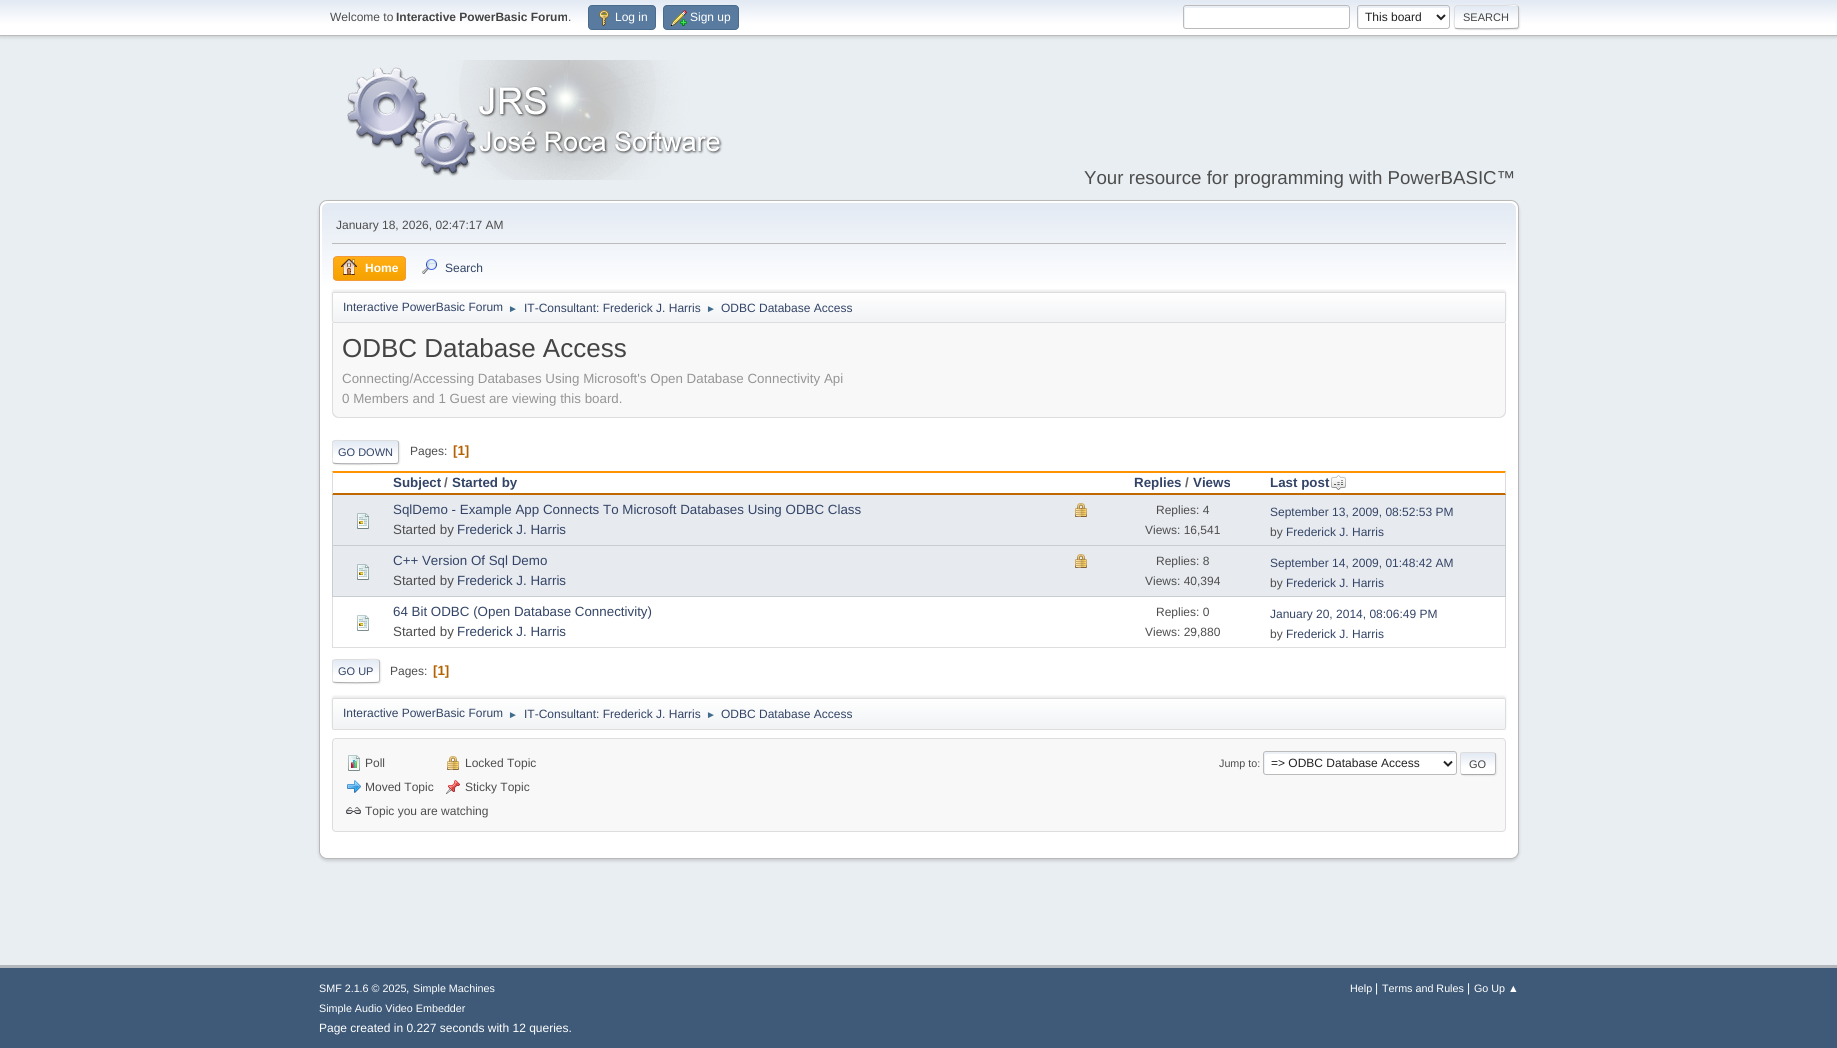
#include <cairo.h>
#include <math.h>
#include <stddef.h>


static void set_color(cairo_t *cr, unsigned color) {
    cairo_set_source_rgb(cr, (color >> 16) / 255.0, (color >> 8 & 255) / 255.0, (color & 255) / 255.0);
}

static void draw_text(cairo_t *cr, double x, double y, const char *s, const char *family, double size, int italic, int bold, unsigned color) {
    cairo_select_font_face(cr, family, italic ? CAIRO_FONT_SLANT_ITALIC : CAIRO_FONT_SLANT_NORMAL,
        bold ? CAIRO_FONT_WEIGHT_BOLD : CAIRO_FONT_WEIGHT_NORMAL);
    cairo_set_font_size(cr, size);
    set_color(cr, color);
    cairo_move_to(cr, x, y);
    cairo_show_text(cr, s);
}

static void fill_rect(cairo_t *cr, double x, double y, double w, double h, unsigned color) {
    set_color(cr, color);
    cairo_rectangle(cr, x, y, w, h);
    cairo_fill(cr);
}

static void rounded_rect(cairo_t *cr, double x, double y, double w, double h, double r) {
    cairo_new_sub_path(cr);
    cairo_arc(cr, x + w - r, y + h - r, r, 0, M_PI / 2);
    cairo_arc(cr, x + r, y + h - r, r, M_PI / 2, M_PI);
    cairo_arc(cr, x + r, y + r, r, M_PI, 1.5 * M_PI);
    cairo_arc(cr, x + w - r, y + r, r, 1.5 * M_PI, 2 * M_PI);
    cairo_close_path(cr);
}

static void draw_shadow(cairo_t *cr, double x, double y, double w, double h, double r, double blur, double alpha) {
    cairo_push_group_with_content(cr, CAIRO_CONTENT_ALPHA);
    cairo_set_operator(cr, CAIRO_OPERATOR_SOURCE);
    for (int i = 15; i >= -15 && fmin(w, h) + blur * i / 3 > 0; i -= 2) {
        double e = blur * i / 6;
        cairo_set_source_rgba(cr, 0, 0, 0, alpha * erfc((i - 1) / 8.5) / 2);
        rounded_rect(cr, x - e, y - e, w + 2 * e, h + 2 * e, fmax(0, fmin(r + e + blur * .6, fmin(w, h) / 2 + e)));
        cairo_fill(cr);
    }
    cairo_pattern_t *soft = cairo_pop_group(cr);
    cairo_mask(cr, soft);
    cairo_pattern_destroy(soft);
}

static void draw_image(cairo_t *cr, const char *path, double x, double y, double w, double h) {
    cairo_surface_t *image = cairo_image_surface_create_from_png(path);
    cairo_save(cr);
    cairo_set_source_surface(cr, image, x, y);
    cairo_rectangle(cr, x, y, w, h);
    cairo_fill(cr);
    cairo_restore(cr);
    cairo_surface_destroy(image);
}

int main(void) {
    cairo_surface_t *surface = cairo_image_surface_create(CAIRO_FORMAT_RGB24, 1837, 1048);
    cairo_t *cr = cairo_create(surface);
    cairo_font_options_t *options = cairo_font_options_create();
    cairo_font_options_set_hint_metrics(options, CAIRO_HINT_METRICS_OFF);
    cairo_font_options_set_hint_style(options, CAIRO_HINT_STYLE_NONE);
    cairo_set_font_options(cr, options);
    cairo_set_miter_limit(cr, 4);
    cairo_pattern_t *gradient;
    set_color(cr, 0xE9EEF2);
    cairo_paint(cr);
    set_color(cr, 0x000000);
    draw_shadow(cr, 0, 1, 1837, 36, 0, 2, 0.16);
    gradient = cairo_pattern_create_linear(919, 0, 919, 35);
    cairo_pattern_add_color_stop_rgba(gradient, 0, 0.886, 0.914, 0.953, 1);
    cairo_pattern_add_color_stop_rgba(gradient, 0.7, 1, 1, 1, 1);
    cairo_set_source(cr, gradient);
    cairo_pattern_destroy(gradient);
    cairo_rectangle(cr, 0, 0, 1837, 35);
    cairo_fill(cr);
    fill_rect(cr, 0, 35, 1837, 1, 0xBBBBBB);
    draw_text(cr, 330, 21, "Welcome to", "Liberation Sans", 12, 0, 0, 0x4D4D4D);
    draw_text(cr, 396, 21, "Interactive PowerBasic Forum", "Liberation Sans", 12, 0, 1, 0x444444);
    draw_text(cr, 568, 21, ".", "Liberation Sans", 12, 0, 0, 0x4D4D4D);
    set_color(cr, 0x597B9F);
    rounded_rect(cr, 588.5, 5.5, 67, 24, 3.5);
    cairo_fill_preserve(cr);
    set_color(cr, 0x4A6B8C);
    cairo_set_line_width(cr, 1);
    cairo_stroke(cr);
    draw_image(cr, "assets/img1.png", 599, 10, 10, 16);
    draw_text(cr, 615, 21, "Log in", "Liberation Sans", 12, 0, 0, 0xFFFFFF);
    set_color(cr, 0x597B9F);
    rounded_rect(cr, 663.5, 5.5, 75, 24, 3.5);
    cairo_fill_preserve(cr);
    set_color(cr, 0x4A6B8C);
    cairo_stroke(cr);
    draw_image(cr, "assets/img2.png", 671, 10, 16, 16);
    draw_text(cr, 690, 21, "Sign up", "Liberation Sans", 12, 0, 0, 0xFFFFFF);
    rounded_rect(cr, 1183, 5, 167, 24, 3);
    cairo_fill(cr);
    set_color(cr, 0xECF1F8);
    cairo_new_path(cr);
    cairo_move_to(cr, 1187, 8);
    cairo_line_to(cr, 1349, 8);
    cairo_line_to(cr, 1349, 7);
    cairo_line_to(cr, 1347, 6);
    cairo_line_to(cr, 1186, 6);
    cairo_curve_to(cr, 1185, 6, 1184, 7, 1184, 8);
    cairo_curve_to(cr, 1184, 11, 1183, 27, 1185, 28);
    cairo_line_to(cr, 1185, 10);
    cairo_curve_to(cr, 1185, 9, 1186, 8, 1187, 8);
    cairo_close_path(cr);
    cairo_fill(cr);
    rounded_rect(cr, 1183.5, 5.5, 166, 23, 2.5);
    set_color(cr, 0xBBBBBB);
    cairo_stroke(cr);
    set_color(cr, 0xFFFFFF);
    rounded_rect(cr, 1357, 5, 93, 24, 3);
    cairo_fill(cr);
    set_color(cr, 0xECF1F8);
    cairo_new_path(cr);
    cairo_move_to(cr, 1361, 8);
    cairo_line_to(cr, 1449, 8);
    cairo_curve_to(cr, 1449, 3, 1437, 6, 1432, 6);
    cairo_line_to(cr, 1374, 6);
    cairo_curve_to(cr, 1356, 6, 1358, 2, 1358, 17);
    cairo_curve_to(cr, 1358, 19, 1357, 27, 1359, 28);
    cairo_line_to(cr, 1359, 10);
    cairo_curve_to(cr, 1359, 9, 1360, 8, 1361, 8);
    cairo_close_path(cr);
    cairo_fill(cr);
    rounded_rect(cr, 1357.5, 5.5, 92, 23, 2.5);
    set_color(cr, 0xBBBBBB);
    cairo_stroke(cr);
    cairo_new_path(cr);
    cairo_move_to(cr, 1437, 15);
    cairo_line_to(cr, 1441, 19);
    cairo_line_to(cr, 1445, 15);
    set_color(cr, 0x222222);
    cairo_set_line_width(cr, 2);
    cairo_stroke(cr);
    draw_text(cr, 1365, 21, "This board", "Liberation Sans", 12, 0, 0, 0x222222);
    set_color(cr, 0xDDDDDD);
    draw_shadow(cr, 1455, 6, 65, 24, 3, 0.5, 0.57);
    cairo_save(cr);
    rounded_rect(cr, 1454, 5, 65, 24, 3);
    cairo_clip(cr);
    gradient = cairo_pattern_create_linear(1487, -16, 1487, 6);
    cairo_pattern_add_color_stop_rgba(gradient, 0, 0.886, 0.914, 0.953, 1);
    cairo_pattern_add_color_stop_rgba(gradient, 0.7, 1, 1, 1, 1);
    cairo_set_source(cr, gradient);
    cairo_pattern_destroy(gradient);
    cairo_rectangle(cr, 1454, 5, 65, 1);
    cairo_fill(cr);
    gradient = cairo_pattern_create_linear(1487, 6, 1487, 28);
    cairo_pattern_add_color_stop_rgba(gradient, 0, 0.886, 0.914, 0.953, 1);
    cairo_pattern_add_color_stop_rgba(gradient, 0.7, 1, 1, 1, 1);
    cairo_set_source(cr, gradient);
    cairo_pattern_destroy(gradient);
    cairo_rectangle(cr, 1454, 6, 65, 22);
    cairo_fill(cr);
    gradient = cairo_pattern_create_linear(1487, 28, 1487, 50);
    cairo_pattern_add_color_stop_rgba(gradient, 0, 0.886, 0.914, 0.953, 1);
    cairo_pattern_add_color_stop_rgba(gradient, 0.7, 1, 1, 1, 1);
    cairo_set_source(cr, gradient);
    cairo_pattern_destroy(gradient);
    cairo_rectangle(cr, 1454, 28, 65, 1);
    cairo_fill(cr);
    cairo_restore(cr);
    cairo_new_path(cr);
    cairo_move_to(cr, 1518, 6);
    cairo_curve_to(cr, 1518, 6.5, 1518.5, 7.5, 1518.5, 8);
    cairo_line_to(cr, 1518.5, 26);
    cairo_curve_to(cr, 1518.5, 26.5, 1518, 27.5, 1518, 28);
    set_color(cr, 0xBBBBBB);
    cairo_set_line_width(cr, 1);
    cairo_stroke(cr);
    cairo_new_path(cr);
    cairo_move_to(cr, 1518, 28);
    cairo_line_to(cr, 1517.5, 28);
    cairo_curve_to(cr, 1516.5, 29, 1462, 29, 1457, 28.5);
    cairo_line_to(cr, 1455, 28);
    set_color(cr, 0xAAAAAA);
    cairo_stroke(cr);
    cairo_new_path(cr);
    cairo_move_to(cr, 1455, 28);
    cairo_curve_to(cr, 1453.5, 26, 1454.5, 19, 1454.5, 17);
    cairo_curve_to(cr, 1454.5, 3.5, 1452.5, 5.5, 1467, 5.5);
    cairo_line_to(cr, 1506, 5.5);
    cairo_curve_to(cr, 1510, 5.5, 1515, 3.5, 1518, 6);
    set_color(cr, 0xDDDDDD);
    cairo_stroke(cr);
    draw_text(cr, 1463, 21, "SEARCH", "Liberation Sans", 11, 0, 0, 0x444444);
    draw_image(cr, "assets/img3.png", 347, 60, 376, 120);
    draw_text(cr, 1084, 184, "Your resource for programming with PowerBASIC™", "Liberation Sans", 18.7, 0, 0, 0x4D4D4D);
    set_color(cr, 0x000000);
    draw_shadow(cr, 319, 202, 1200, 659, 8, 1.5, 0.14);
    set_color(cr, 0xFFFFFF);
    rounded_rect(cr, 319.5, 200.5, 1199, 658, 7.5);
    cairo_fill_preserve(cr);
    set_color(cr, 0xB8B8B8);
    cairo_stroke(cr);
    gradient = cairo_pattern_create_linear(919, 203, 919, 325);
    cairo_pattern_add_color_stop_rgba(gradient, 0, 0.886, 0.914, 0.953, 1);
    cairo_pattern_add_color_stop_rgba(gradient, 0.7, 1, 1, 1, 1);
    cairo_set_source(cr, gradient);
    cairo_pattern_destroy(gradient);
    cairo_new_path(cr);
    cairo_move_to(cr, 328, 203);
    cairo_line_to(cr, 1510, 203);
    cairo_curve_to(cr, 1513.5, 203, 1516, 205.5, 1516, 209);
    cairo_line_to(cr, 1516, 325);
    cairo_line_to(cr, 322, 325);
    cairo_line_to(cr, 322, 209);
    cairo_curve_to(cr, 322, 205.5, 324.5, 203, 328, 203);
    cairo_close_path(cr);
    cairo_fill(cr);
    fill_rect(cr, 332, 243, 1174, 1, 0xBBBBBB);
    draw_text(cr, 336, 229, "January 18, 2026, 02:47:17 AM", "Liberation Sans", 12, 0, 0, 0x4D4D4D);
    cairo_save(cr);
    rounded_rect(cr, 333, 256, 73, 25, 4);
    cairo_clip(cr);
    gradient = cairo_pattern_create_linear(370, 257, 370, 280);
    cairo_pattern_add_color_stop_rgba(gradient, 0, 1, 0.682, 0.078, 1);
    cairo_pattern_add_color_stop_rgba(gradient, 1, 0.961, 0.631, 0, 1);
    cairo_set_source(cr, gradient);
    cairo_pattern_destroy(gradient);
    cairo_rectangle(cr, 333, 257, 73, 23);
    cairo_fill(cr);
    cairo_restore(cr);
    rounded_rect(cr, 333.5, 256.5, 72, 24, 3.5);
    set_color(cr, 0xF49A3A);
    cairo_stroke(cr);
    draw_image(cr, "assets/img4.png", 341, 259, 16, 16);
    draw_text(cr, 365, 272, "Home", "Liberation Sans", 12, 0, 1, 0xFFFFFF);
    draw_image(cr, "assets/img5.png", 422, 259, 15, 15);
    draw_text(cr, 445, 272, "Search", "Liberation Sans", 12, 0, 0, 0x334466);
    set_color(cr, 0x000000);
    draw_shadow(cr, 332, 290, 1174, 31, 2, 1, 0.08);
    cairo_save(cr);
    rounded_rect(cr, 332, 292, 1174, 31, 2);
    cairo_clip(cr);
    gradient = cairo_pattern_create_linear(919, 293, 919, 322);
    cairo_pattern_add_color_stop_rgba(gradient, 0, 1, 1, 1, 1);
    cairo_pattern_add_color_stop_rgba(gradient, 0.95, 0.945, 0.953, 0.961, 1);
    cairo_set_source(cr, gradient);
    cairo_pattern_destroy(gradient);
    cairo_rectangle(cr, 332, 293, 1174, 29);
    cairo_fill(cr);
    cairo_restore(cr);
    rounded_rect(cr, 332.5, 292.5, 1173, 30, 1.5);
    set_color(cr, 0xDDDDDD);
    cairo_stroke(cr);
    draw_text(cr, 343, 311, "Interactive PowerBasic Forum", "Liberation Sans", 12, 0, 0, 0x334466);
    draw_text(cr, 508, 312, "►", "Liberation Sans", 10, 0, 0, 0x3F6B8C);
    draw_text(cr, 524, 312, "IT-Consultant: Frederick J. Harris", "Liberation Sans", 12, 0, 0, 0x334466);
    draw_text(cr, 706, 312, "►", "Liberation Sans", 10, 0, 0, 0x3F6B8C);
    draw_text(cr, 721, 312, "ODBC Database Access", "Liberation Sans", 12, 0, 0, 0x334466);
    set_color(cr, 0xF8F8F8);
    cairo_new_path(cr);
    cairo_move_to(cr, 332, 323);
    cairo_line_to(cr, 1506, 323);
    cairo_line_to(cr, 1506, 411);
    cairo_curve_to(cr, 1506, 415, 1503, 418, 1499, 418);
    cairo_line_to(cr, 339, 418);
    cairo_curve_to(cr, 335, 418, 332, 415, 332, 411);
    cairo_close_path(cr);
    cairo_fill(cr);
    set_color(cr, 0xDDDDDD);
    cairo_set_fill_rule(cr, CAIRO_FILL_RULE_EVEN_ODD);
    cairo_new_path(cr);
    cairo_move_to(cr, 332, 323);
    cairo_line_to(cr, 1506, 323);
    cairo_line_to(cr, 1506, 411);
    cairo_curve_to(cr, 1506, 415, 1503, 418, 1499, 418);
    cairo_line_to(cr, 339, 418);
    cairo_curve_to(cr, 335, 418, 332, 415, 332, 411);
    cairo_close_path(cr);
    cairo_move_to(cr, 333, 323);
    cairo_line_to(cr, 1505, 323);
    cairo_line_to(cr, 1505, 411);
    cairo_curve_to(cr, 1505, 414, 1502, 417, 1499, 417);
    cairo_line_to(cr, 339, 417);
    cairo_curve_to(cr, 336, 417, 333, 414, 333, 411);
    cairo_close_path(cr);
    cairo_fill(cr);
    draw_text(cr, 342, 357, "ODBC Database Access", "Liberation Sans", 26, 0, 0, 0x444444);
    draw_text(cr, 342, 383, "Connecting/Accessing Databases Using Microsoft's Open Database Connectivity Api", "Liberation Sans", 13.35, 0, 0, 0x959595);
    draw_text(cr, 342, 403, "0 Members and 1 Guest are viewing this board.", "Liberation Sans", 13.35, 0, 0, 0x959595);
    set_color(cr, 0xDDDDDD);
    draw_shadow(cr, 333, 441, 67, 24, 3, 0.5, 0.57);
    cairo_save(cr);
    cairo_set_fill_rule(cr, CAIRO_FILL_RULE_WINDING);
    rounded_rect(cr, 332, 440, 67, 24, 3);
    cairo_clip(cr);
    gradient = cairo_pattern_create_linear(366, 441, 366, 463);
    cairo_pattern_add_color_stop_rgba(gradient, 0, 0.886, 0.914, 0.953, 1);
    cairo_pattern_add_color_stop_rgba(gradient, 0.7, 1, 1, 1, 1);
    cairo_set_source(cr, gradient);
    cairo_pattern_destroy(gradient);
    cairo_rectangle(cr, 332, 441, 67, 22);
    cairo_fill(cr);
    gradient = cairo_pattern_create_linear(366, 463, 366, 485);
    cairo_pattern_add_color_stop_rgba(gradient, 0, 0.886, 0.914, 0.953, 1);
    cairo_pattern_add_color_stop_rgba(gradient, 0.7, 1, 1, 1, 1);
    cairo_set_source(cr, gradient);
    cairo_pattern_destroy(gradient);
    cairo_rectangle(cr, 332, 463, 67, 1);
    cairo_fill(cr);
    cairo_restore(cr);
    cairo_new_path(cr);
    cairo_move_to(cr, 398, 441);
    cairo_curve_to(cr, 398, 441.5, 398.5, 442.5, 398.5, 443);
    cairo_line_to(cr, 398.5, 461);
    cairo_curve_to(cr, 398.5, 461.5, 398, 462.5, 398, 463);
    set_color(cr, 0xBBBBBB);
    cairo_stroke(cr);
    cairo_new_path(cr);
    cairo_move_to(cr, 398, 463);
    cairo_line_to(cr, 396, 463.5);
    cairo_line_to(cr, 386, 463.5);
    cairo_curve_to(cr, 380, 463.5, 335.5, 464.5, 333.5, 463);
    cairo_line_to(cr, 333, 463);
    set_color(cr, 0xAAAAAA);
    cairo_stroke(cr);
    cairo_save(cr);
    cairo_set_fill_rule(cr, CAIRO_FILL_RULE_WINDING);
    cairo_rectangle(cr, 332, 433, 1174, 38);
    cairo_clip(cr);
    cairo_new_path(cr);
    cairo_move_to(cr, 333, 463);
    cairo_curve_to(cr, 331.5, 461, 332.5, 457, 332.5, 455);
    cairo_curve_to(cr, 332.5, 438.5, 329, 440.5, 345, 440.5);
    cairo_line_to(cr, 396, 440.5);
    cairo_line_to(cr, 398, 441);
    set_color(cr, 0xDDDDDD);
    cairo_stroke(cr);
    cairo_restore(cr);
    draw_text(cr, 338, 456, "GO DOWN", "Liberation Sans", 11, 0, 0, 0x334466);
    draw_text(cr, 410, 455, "Pages:", "Liberation Sans", 12, 0, 0, 0x4D4D4D);
    draw_text(cr, 453, 455, "[1]", "Liberation Sans", 13.35, 0, 1, 0xB46100);
    set_color(cr, 0xFF9400);
    cairo_set_fill_rule(cr, CAIRO_FILL_RULE_WINDING);
    cairo_new_path(cr);
    cairo_move_to(cr, 332, 471);
    cairo_line_to(cr, 1506, 471);
    cairo_line_to(cr, 1505, 473);
    cairo_line_to(cr, 333, 473);
    cairo_close_path(cr);
    cairo_fill(cr);
    set_color(cr, 0xDDDDDD);
    cairo_new_path(cr);
    cairo_move_to(cr, 1506, 471);
    cairo_line_to(cr, 1506, 495);
    cairo_line_to(cr, 1505, 493);
    cairo_line_to(cr, 1505, 473);
    cairo_close_path(cr);
    cairo_fill(cr);
    set_color(cr, 0xBF6900);
    cairo_new_path(cr);
    cairo_move_to(cr, 1506, 495);
    cairo_line_to(cr, 332, 495);
    cairo_line_to(cr, 333, 493);
    cairo_line_to(cr, 1505, 493);
    cairo_close_path(cr);
    cairo_fill(cr);
    set_color(cr, 0xDDDDDD);
    cairo_new_path(cr);
    cairo_move_to(cr, 332, 495);
    cairo_line_to(cr, 332, 471);
    cairo_line_to(cr, 333, 473);
    cairo_line_to(cr, 333, 493);
    cairo_close_path(cr);
    cairo_fill(cr);
    draw_text(cr, 393, 487, "Subject", "Liberation Sans", 13.35, 0, 1, 0x334466);
    draw_text(cr, 444, 487, "/", "Liberation Sans", 13.35, 0, 1, 0x666666);
    draw_text(cr, 452, 487, "Started by", "Liberation Sans", 13.35, 0, 1, 0x334466);
    draw_text(cr, 1134, 487, "Replies", "Liberation Sans", 13.35, 0, 1, 0x334466);
    draw_text(cr, 1185, 487, "/", "Liberation Sans", 13.35, 0, 1, 0x666666);
    draw_text(cr, 1193, 487, "Views", "Liberation Sans", 13.35, 0, 1, 0x334466);
    draw_text(cr, 1270, 487, "Last post", "Liberation Sans", 13.35, 0, 1, 0x334466);
    draw_image(cr, "assets/img6.png", 1331, 475, 15, 15);
    fill_rect(cr, 332, 495, 1174, 102, 0xE7EAEF);
    set_color(cr, 0xC9CCD0);
    cairo_new_path(cr);
    cairo_move_to(cr, 1506, 495);
    cairo_line_to(cr, 1506, 546);
    cairo_line_to(cr, 1505, 545);
    cairo_line_to(cr, 1505, 495);
    cairo_close_path(cr);
    cairo_fill(cr);
    cairo_set_source_rgba(cr, 0, 0, 0, 0.13);
    cairo_new_path(cr);
    cairo_move_to(cr, 1506, 546);
    cairo_line_to(cr, 332, 546);
    cairo_line_to(cr, 333, 545);
    cairo_line_to(cr, 1505, 545);
    cairo_close_path(cr);
    cairo_fill(cr);
    cairo_new_path(cr);
    cairo_move_to(cr, 332, 546);
    cairo_line_to(cr, 332, 495);
    cairo_line_to(cr, 333, 495);
    cairo_line_to(cr, 333, 545);
    cairo_close_path(cr);
    cairo_fill(cr);
    draw_image(cr, "assets/img7.png", 357, 513, 12, 16);
    draw_text(cr, 393, 514, "SqlDemo - Example App Connects To Microsoft Databases Using ODBC Class", "Liberation Sans", 13.35, 0, 0, 0x334466);
    draw_image(cr, "assets/img8.png", 1075, 503, 12, 14);
    draw_text(cr, 393, 534, "Started by", "Liberation Sans", 13.35, 0, 0, 0x4D4D4D);
    draw_text(cr, 457, 534, "Frederick J. Harris", "Liberation Sans", 13.35, 0, 0, 0x334466);
    draw_text(cr, 1156, 514, "Replies: 4", "Liberation Sans", 12, 0, 0, 0x4D4D4D);
    draw_text(cr, 1145, 534, "Views: 16,541", "Liberation Sans", 12, 0, 0, 0x4D4D4D);
    draw_text(cr, 1270, 516, "September 13, 2009, 08:52:53 PM", "Liberation Sans", 12, 0, 0, 0x334466);
    draw_text(cr, 1270, 536, "by", "Liberation Sans", 12, 0, 0, 0x4D4D4D);
    draw_text(cr, 1286, 536, "Frederick J. Harris", "Liberation Sans", 12, 0, 0, 0x334466);
    set_color(cr, 0xC9CCD0);
    cairo_new_path(cr);
    cairo_move_to(cr, 1506, 546);
    cairo_line_to(cr, 1506, 597);
    cairo_line_to(cr, 1505, 596);
    cairo_line_to(cr, 1505, 546);
    cairo_close_path(cr);
    cairo_fill(cr);
    cairo_set_source_rgba(cr, 0, 0, 0, 0.13);
    cairo_new_path(cr);
    cairo_move_to(cr, 1506, 597);
    cairo_line_to(cr, 332, 597);
    cairo_line_to(cr, 333, 596);
    cairo_line_to(cr, 1505, 596);
    cairo_close_path(cr);
    cairo_fill(cr);
    cairo_new_path(cr);
    cairo_move_to(cr, 332, 597);
    cairo_line_to(cr, 332, 546);
    cairo_line_to(cr, 333, 546);
    cairo_line_to(cr, 333, 596);
    cairo_close_path(cr);
    cairo_fill(cr);
    draw_image(cr, "assets/img7.png", 357, 564, 12, 16);
    draw_text(cr, 393, 565, "C++ Version Of Sql Demo", "Liberation Sans", 13.35, 0, 0, 0x334466);
    draw_image(cr, "assets/img8.png", 1075, 554, 12, 14);
    draw_text(cr, 393, 585, "Started by", "Liberation Sans", 13.35, 0, 0, 0x4D4D4D);
    draw_text(cr, 457, 585, "Frederick J. Harris", "Liberation Sans", 13.35, 0, 0, 0x334466);
    draw_text(cr, 1156, 565, "Replies: 8", "Liberation Sans", 12, 0, 0, 0x4D4D4D);
    draw_text(cr, 1145, 585, "Views: 40,394", "Liberation Sans", 12, 0, 0, 0x4D4D4D);
    draw_text(cr, 1270, 567, "September 14, 2009, 01:48:42 AM", "Liberation Sans", 12, 0, 0, 0x334466);
    draw_text(cr, 1270, 587, "by", "Liberation Sans", 12, 0, 0, 0x4D4D4D);
    draw_text(cr, 1286, 587, "Frederick J. Harris", "Liberation Sans", 12, 0, 0, 0x334466);
    set_color(cr, 0xDCDCDC);
    cairo_new_path(cr);
    cairo_move_to(cr, 1506, 597);
    cairo_line_to(cr, 1506, 648);
    cairo_line_to(cr, 1505, 647);
    cairo_line_to(cr, 1505, 597);
    cairo_close_path(cr);
    cairo_fill(cr);
    cairo_set_source_rgba(cr, 0, 0, 0, 0.13);
    cairo_new_path(cr);
    cairo_move_to(cr, 1506, 648);
    cairo_line_to(cr, 332, 648);
    cairo_line_to(cr, 333, 647);
    cairo_line_to(cr, 1505, 647);
    cairo_close_path(cr);
    cairo_fill(cr);
    cairo_new_path(cr);
    cairo_move_to(cr, 332, 648);
    cairo_line_to(cr, 332, 597);
    cairo_line_to(cr, 333, 597);
    cairo_line_to(cr, 333, 647);
    cairo_close_path(cr);
    cairo_fill(cr);
    draw_image(cr, "assets/img9.png", 357, 615, 12, 16);
    draw_text(cr, 393, 616, "64 Bit ODBC (Open Database Connectivity)", "Liberation Sans", 13.35, 0, 0, 0x334466);
    draw_text(cr, 393, 636, "Started by", "Liberation Sans", 13.35, 0, 0, 0x4D4D4D);
    draw_text(cr, 457, 636, "Frederick J. Harris", "Liberation Sans", 13.35, 0, 0, 0x334466);
    draw_text(cr, 1156, 616, "Replies: 0", "Liberation Sans", 12, 0, 0, 0x4D4D4D);
    draw_text(cr, 1145, 636, "Views: 29,880", "Liberation Sans", 12, 0, 0, 0x4D4D4D);
    draw_text(cr, 1270, 618, "January 20, 2014, 08:06:49 PM", "Liberation Sans", 12, 0, 0, 0x334466);
    draw_text(cr, 1270, 638, "by", "Liberation Sans", 12, 0, 0, 0x4D4D4D);
    draw_text(cr, 1286, 638, "Frederick J. Harris", "Liberation Sans", 12, 0, 0, 0x334466);
    set_color(cr, 0xDDDDDD);
    draw_shadow(cr, 333, 660, 48, 24, 3, 0.5, 0.57);
    set_color(cr, 0xFFFFFF);
    rounded_rect(cr, 332, 659, 48, 24, 3);
    cairo_fill(cr);
    cairo_save(cr);
    rounded_rect(cr, 332, 659, 48, 24, 3);
    cairo_clip(cr);
    gradient = cairo_pattern_create_linear(356, 660, 356, 682);
    cairo_pattern_add_color_stop_rgba(gradient, 0, 0.886, 0.914, 0.953, 1);
    cairo_pattern_add_color_stop_rgba(gradient, 0.7, 1, 1, 1, 1);
    cairo_set_source(cr, gradient);
    cairo_pattern_destroy(gradient);
    cairo_rectangle(cr, 332, 660, 48, 22);
    cairo_fill(cr);
    cairo_restore(cr);
    cairo_new_path(cr);
    cairo_move_to(cr, 379, 660);
    cairo_curve_to(cr, 379, 660.5, 379.5, 661.5, 379.5, 662);
    cairo_line_to(cr, 379.5, 680);
    cairo_curve_to(cr, 379.5, 680.5, 379, 681.5, 379, 682);
    set_color(cr, 0xBBBBBB);
    cairo_stroke(cr);
    cairo_new_path(cr);
    cairo_move_to(cr, 379, 682);
    cairo_curve_to(cr, 377.5, 683, 334.5, 683, 333, 682);
    set_color(cr, 0xAAAAAA);
    cairo_stroke(cr);
    cairo_save(cr);
    cairo_rectangle(cr, 332, 652, 1174, 38);
    cairo_clip(cr);
    cairo_new_path(cr);
    cairo_move_to(cr, 333, 682);
    cairo_curve_to(cr, 331.5, 680, 332.5, 673, 332.5, 671);
    cairo_curve_to(cr, 332.5, 659, 330, 659.5, 342, 659.5);
    cairo_line_to(cr, 363, 659.5);
    cairo_curve_to(cr, 365.5, 659.5, 377, 658.5, 379, 660);
    set_color(cr, 0xDDDDDD);
    cairo_stroke(cr);
    cairo_restore(cr);
    draw_text(cr, 338, 675, "GO UP", "Liberation Sans", 11, 0, 0, 0x334466);
    draw_text(cr, 390, 675, "Pages:", "Liberation Sans", 12, 0, 0, 0x4D4D4D);
    draw_text(cr, 433, 675, "[1]", "Liberation Sans", 13.35, 0, 1, 0xB46100);
    set_color(cr, 0x000000);
    draw_shadow(cr, 332, 696, 1174, 32, 2, 1, 0.08);
    cairo_save(cr);
    rounded_rect(cr, 332, 698, 1174, 32, 2);
    cairo_clip(cr);
    gradient = cairo_pattern_create_linear(919, 699, 919, 729);
    cairo_pattern_add_color_stop_rgba(gradient, 0, 1, 1, 1, 1);
    cairo_pattern_add_color_stop_rgba(gradient, 0.95, 0.945, 0.953, 0.961, 1);
    cairo_set_source(cr, gradient);
    cairo_pattern_destroy(gradient);
    cairo_rectangle(cr, 332, 699, 1174, 30);
    cairo_fill(cr);
    cairo_restore(cr);
    rounded_rect(cr, 332.5, 698.5, 1173, 31, 1.5);
    set_color(cr, 0xDDDDDD);
    cairo_stroke(cr);
    draw_text(cr, 343, 717, "Interactive PowerBasic Forum", "Liberation Sans", 12, 0, 0, 0x334466);
    draw_text(cr, 508, 718, "►", "Liberation Sans", 10, 0, 0, 0x3F6B8C);
    draw_text(cr, 524, 718, "IT-Consultant: Frederick J. Harris", "Liberation Sans", 12, 0, 0, 0x334466);
    draw_text(cr, 706, 718, "►", "Liberation Sans", 10, 0, 0, 0x3F6B8C);
    draw_text(cr, 721, 718, "ODBC Database Access", "Liberation Sans", 12, 0, 0, 0x334466);
    set_color(cr, 0xF8F8F8);
    rounded_rect(cr, 332.5, 738.5, 1173, 93, 3.5);
    cairo_fill_preserve(cr);
    set_color(cr, 0xDDDDDD);
    cairo_stroke(cr);
    draw_image(cr, "assets/img10.png", 348, 755, 12, 16);
    draw_text(cr, 365, 767, "Poll", "Liberation Sans", 12, 0, 0, 0x4D4D4D);
    draw_image(cr, "assets/img11.png", 347, 780, 14, 13);
    draw_text(cr, 365, 791, "Moved Topic", "Liberation Sans", 12, 0, 0, 0x4D4D4D);
    draw_image(cr, "assets/img12.png", 447, 756, 12, 14);
    draw_text(cr, 465, 767, "Locked Topic", "Liberation Sans", 12, 0, 0, 0x4D4D4D);
    draw_image(cr, "assets/img13.png", 446, 780, 14, 14);
    draw_text(cr, 465, 791, "Sticky Topic", "Liberation Sans", 12, 0, 0, 0x4D4D4D);
    draw_image(cr, "assets/img14.png", 346, 807, 15, 7);
    draw_text(cr, 365, 815, "Topic you are watching", "Liberation Sans", 12, 0, 0, 0x4D4D4D);
    draw_text(cr, 1219, 767, "Jump to:", "Liberation Sans", 10.75, 0, 0, 0x4D4D4D);
    set_color(cr, 0xFFFFFF);
    rounded_rect(cr, 1263, 751, 194, 24, 3);
    cairo_fill(cr);
    set_color(cr, 0xECF1F8);
    cairo_new_path(cr);
    cairo_move_to(cr, 1267, 754);
    cairo_line_to(cr, 1456, 754);
    cairo_curve_to(cr, 1456, 753, 1455, 752, 1454, 752);
    cairo_line_to(cr, 1266, 752);
    cairo_curve_to(cr, 1265, 752, 1264, 753, 1264, 754);
    cairo_line_to(cr, 1264, 772);
    cairo_curve_to(cr, 1264, 773, 1264, 773, 1265, 774);
    cairo_line_to(cr, 1265, 756);
    cairo_curve_to(cr, 1265, 755, 1266, 754, 1267, 754);
    cairo_close_path(cr);
    cairo_fill(cr);
    rounded_rect(cr, 1263.5, 751.5, 193, 23, 2.5);
    set_color(cr, 0xBBBBBB);
    cairo_stroke(cr);
    cairo_new_path(cr);
    cairo_move_to(cr, 1444, 761.5);
    cairo_line_to(cr, 1448, 765.5);
    cairo_line_to(cr, 1452, 761.5);
    set_color(cr, 0x222222);
    cairo_set_line_width(cr, 2);
    cairo_stroke(cr);
    draw_text(cr, 1271, 767, "=> ODBC Database Access", "Liberation Sans", 12, 0, 0, 0x222222);
    set_color(cr, 0xDDDDDD);
    draw_shadow(cr, 1461, 753, 36, 23, 3, 0.5, 0.57);
    cairo_save(cr);
    rounded_rect(cr, 1460, 752, 36, 23, 3);
    cairo_clip(cr);
    gradient = cairo_pattern_create_linear(1478, 753, 1478, 774);
    cairo_pattern_add_color_stop_rgba(gradient, 0, 0.886, 0.914, 0.953, 1);
    cairo_pattern_add_color_stop_rgba(gradient, 0.7, 1, 1, 1, 1);
    cairo_set_source(cr, gradient);
    cairo_pattern_destroy(gradient);
    cairo_rectangle(cr, 1460, 753, 36, 21);
    cairo_fill(cr);
    cairo_restore(cr);
    cairo_new_path(cr);
    cairo_move_to(cr, 1495, 753);
    cairo_curve_to(cr, 1495, 753.5, 1495.5, 754.5, 1495.5, 755);
    cairo_line_to(cr, 1495.5, 772);
    cairo_curve_to(cr, 1495.5, 772.5, 1495, 773.5, 1495, 774);
    set_color(cr, 0xBBBBBB);
    cairo_set_line_width(cr, 1);
    cairo_stroke(cr);
    cairo_new_path(cr);
    cairo_move_to(cr, 1495, 774);
    cairo_curve_to(cr, 1494.5, 774, 1493.5, 774.5, 1493, 774.5);
    cairo_line_to(cr, 1463, 774.5);
    cairo_curve_to(cr, 1462.5, 774.5, 1461.5, 774, 1461, 774);
    set_color(cr, 0xAAAAAA);
    cairo_stroke(cr);
    cairo_new_path(cr);
    cairo_move_to(cr, 1461, 774);
    cairo_curve_to(cr, 1461, 773.5, 1460.5, 772.5, 1460.5, 772);
    cairo_line_to(cr, 1460.5, 755);
    cairo_curve_to(cr, 1460.5, 754.5, 1461, 753.5, 1461, 753);
    cairo_curve_to(cr, 1461.5, 753, 1462.5, 752.5, 1463, 752.5);
    cairo_line_to(cr, 1493, 752.5);
    cairo_curve_to(cr, 1493.5, 752.5, 1494.5, 753, 1495, 753);
    set_color(cr, 0xDDDDDD);
    cairo_stroke(cr);
    draw_text(cr, 1469, 768, "GO", "Liberation Sans", 11, 0, 0, 0x444444);
    fill_rect(cr, 0, 968, 1837, 80, 0x3E5A78);
    fill_rect(cr, 0, 965, 1837, 3, 0xB2B6BD);
    draw_text(cr, 319, 992, "SMF 2.1.6 © 2025", "Liberation Sans", 10.75, 0, 0, 0xFFFFFF);
    draw_text(cr, 406, 992, ",", "Liberation Sans", 12, 0, 0, 0xFFFFFF);
    draw_text(cr, 413, 992, "Simple Machines", "Liberation Sans", 10.75, 0, 0, 0xFFFFFF);
    draw_text(cr, 319, 1012, "Simple Audio Video Embedder", "Liberation Sans", 10.75, 0, 0, 0xFFFFFF);
    draw_text(cr, 1350, 992, "Help", "Liberation Sans", 10.75, 0, 0, 0xFFFFFF);
    draw_text(cr, 1375, 992, "|", "Liberation Sans", 12, 0, 0, 0xFFFFFF);
    draw_text(cr, 1382, 992, "Terms and Rules", "Liberation Sans", 10.75, 0, 0, 0xFFFFFF);
    draw_text(cr, 1467, 992, "|", "Liberation Sans", 12, 0, 0, 0xFFFFFF);
    draw_text(cr, 1474, 992, "Go Up ▲", "Liberation Sans", 10.75, 0, 0, 0xFFFFFF);
    draw_text(cr, 319, 1032, "Page created in 0.227 seconds with 12 queries.", "Liberation Sans", 12, 0, 0, 0xFFFFFF);
    cairo_surface_write_to_png(surface, "output.png");
    cairo_font_options_destroy(options);
    cairo_destroy(cr);
    cairo_surface_destroy(surface);
    return 0;
}
